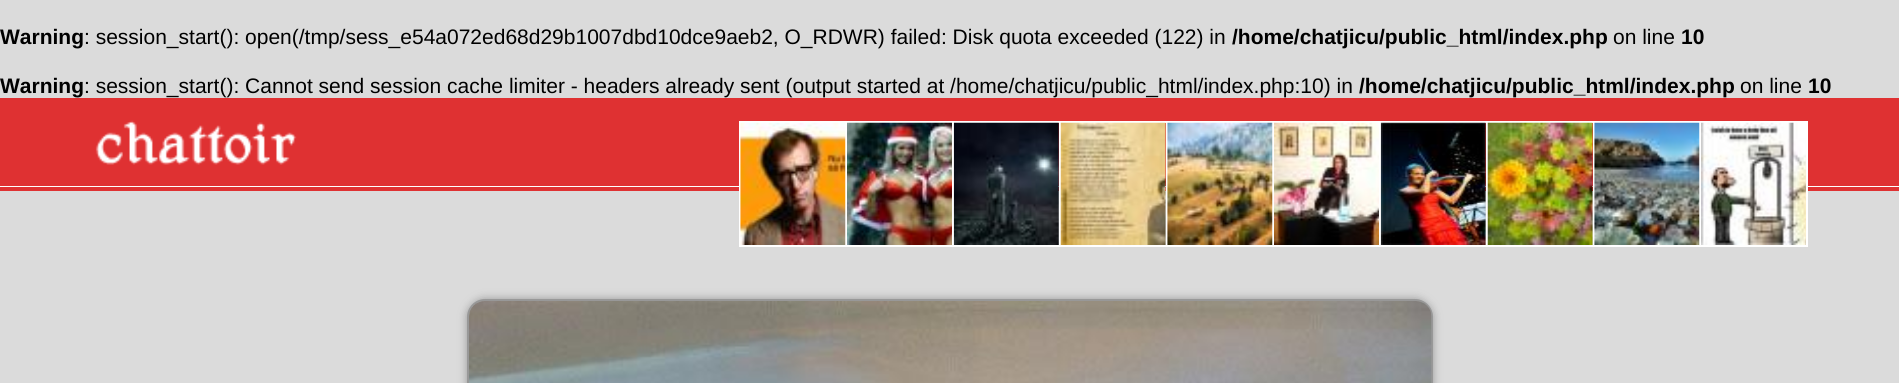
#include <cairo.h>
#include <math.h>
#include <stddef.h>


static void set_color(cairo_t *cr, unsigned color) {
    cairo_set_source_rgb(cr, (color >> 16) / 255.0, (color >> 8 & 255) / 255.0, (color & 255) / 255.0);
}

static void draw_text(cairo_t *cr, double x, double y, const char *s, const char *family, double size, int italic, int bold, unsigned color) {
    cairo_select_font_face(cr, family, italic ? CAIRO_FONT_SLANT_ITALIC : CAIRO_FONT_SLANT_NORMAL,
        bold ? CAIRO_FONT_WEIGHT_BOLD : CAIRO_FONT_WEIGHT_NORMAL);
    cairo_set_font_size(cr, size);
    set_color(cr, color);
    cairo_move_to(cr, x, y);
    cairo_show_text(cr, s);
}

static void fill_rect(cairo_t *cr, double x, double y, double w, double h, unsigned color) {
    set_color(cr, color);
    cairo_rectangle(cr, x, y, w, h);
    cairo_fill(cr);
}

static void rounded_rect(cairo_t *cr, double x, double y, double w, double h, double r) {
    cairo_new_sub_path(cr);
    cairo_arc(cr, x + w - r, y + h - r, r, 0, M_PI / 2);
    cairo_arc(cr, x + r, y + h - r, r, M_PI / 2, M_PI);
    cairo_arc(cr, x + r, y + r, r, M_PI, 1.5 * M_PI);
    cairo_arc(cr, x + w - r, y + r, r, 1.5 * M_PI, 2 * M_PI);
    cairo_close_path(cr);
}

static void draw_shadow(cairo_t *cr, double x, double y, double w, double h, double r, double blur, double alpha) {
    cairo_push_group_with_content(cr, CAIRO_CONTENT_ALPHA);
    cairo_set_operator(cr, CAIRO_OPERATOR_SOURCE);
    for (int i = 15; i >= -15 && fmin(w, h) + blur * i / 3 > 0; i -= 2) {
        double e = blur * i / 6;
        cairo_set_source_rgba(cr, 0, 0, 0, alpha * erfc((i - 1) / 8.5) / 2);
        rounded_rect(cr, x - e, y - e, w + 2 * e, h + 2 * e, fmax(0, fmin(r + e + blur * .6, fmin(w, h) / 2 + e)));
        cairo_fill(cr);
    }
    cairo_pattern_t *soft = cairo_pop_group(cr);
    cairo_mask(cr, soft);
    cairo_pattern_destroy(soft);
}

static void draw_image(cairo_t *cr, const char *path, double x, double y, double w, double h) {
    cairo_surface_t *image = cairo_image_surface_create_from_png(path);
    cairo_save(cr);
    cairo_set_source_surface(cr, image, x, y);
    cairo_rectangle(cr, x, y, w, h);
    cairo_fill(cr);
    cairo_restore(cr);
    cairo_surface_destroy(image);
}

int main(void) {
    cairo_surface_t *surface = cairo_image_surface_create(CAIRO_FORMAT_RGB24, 1899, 383);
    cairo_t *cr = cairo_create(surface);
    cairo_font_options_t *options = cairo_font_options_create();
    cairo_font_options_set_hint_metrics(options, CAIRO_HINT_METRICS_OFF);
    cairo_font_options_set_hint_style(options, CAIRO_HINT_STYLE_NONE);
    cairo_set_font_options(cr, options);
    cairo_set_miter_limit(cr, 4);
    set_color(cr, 0xDBDBDB);
    cairo_paint(cr);
    draw_text(cr, 0, 44, "Warning", "Liberation Sans", 21, 0, 1, 0x000000);
    draw_text(cr, 84, 44, ": session_start(): open(/tmp/sess_e54a072ed68d29b1007dbd10dce9aeb2, O_RDWR) failed: Disk quota exceeded (122) in", "Liberation Sans", 21, 0, 0, 0x000000);
    draw_text(cr, 1232, 44, "/home/chatjicu/public_html/index.php", "Liberation Sans", 21, 0, 1, 0x000000);
    draw_text(cr, 1613, 44, "on line", "Liberation Sans", 21, 0, 0, 0x000000);
    draw_text(cr, 1681, 44, "10", "Liberation Sans", 21, 0, 1, 0x000000);
    draw_text(cr, 0, 93, "Warning", "Liberation Sans", 21, 0, 1, 0x000000);
    draw_text(cr, 84, 93, ": session_start(): Cannot send session cache limiter - headers already sent (output started at /home/chatjicu/public_html/index.php:10) in", "Liberation Sans", 21, 0, 0, 0x000000);
    draw_text(cr, 1359, 93, "/home/chatjicu/public_html/index.php", "Liberation Sans", 21, 0, 1, 0x000000);
    draw_text(cr, 1740, 93, "on line", "Liberation Sans", 21, 0, 0, 0x000000);
    draw_text(cr, 1808, 93, "10", "Liberation Sans", 21, 0, 1, 0x000000);
    fill_rect(cr, 0, 98, 1899, 88, 0xDF3132);
    fill_rect(cr, 0, 186, 1899, 1, 0xFFFFFF);
    draw_image(cr, "assets/img1.png", 95, 120, 202, 45);
    fill_rect(cr, 0, 187, 1899, 4, 0xDF3132);
    fill_rect(cr, 1806, 121, 2, 126, 0xFFFFFF);
    fill_rect(cr, 739, 121, 1067, 2, 0xFFFFFF);
    fill_rect(cr, 739, 245, 1067, 2, 0xFFFFFF);
    fill_rect(cr, 1699, 121, 2, 126, 0xFFFFFF);
    draw_image(cr, "assets/img2.png", 1701, 122, 105, 123);
    fill_rect(cr, 739, 121, 2, 126, 0xFFFFFF);
    fill_rect(cr, 845, 121, 2, 126, 0xFFFFFF);
    draw_image(cr, "assets/img3.png", 740, 122, 106, 123);
    draw_image(cr, "assets/img4.png", 847, 122, 105, 123);
    fill_rect(cr, 952, 121, 2, 126, 0xFFFFFF);
    draw_image(cr, "assets/img5.png", 953, 122, 106, 123);
    fill_rect(cr, 1059, 121, 2, 126, 0xFFFFFF);
    draw_image(cr, "assets/img6.png", 1060, 122, 106, 123);
    fill_rect(cr, 1166, 121, 2, 126, 0xFFFFFF);
    fill_rect(cr, 1272, 121, 2, 126, 0xFFFFFF);
    draw_image(cr, "assets/img7.png", 1167, 122, 106, 123);
    draw_image(cr, "assets/img8.png", 1274, 122, 105, 123);
    fill_rect(cr, 1379, 121, 2, 126, 0xFFFFFF);
    draw_image(cr, "assets/img9.png", 1380, 122, 106, 123);
    fill_rect(cr, 1486, 121, 2, 126, 0xFFFFFF);
    draw_image(cr, "assets/img10.png", 1487, 122, 106, 123);
    fill_rect(cr, 1593, 121, 2, 126, 0xFFFFFF);
    draw_image(cr, "assets/img11.png", 1594, 122, 106, 123);
    set_color(cr, 0x989898);
    draw_shadow(cr, 467, 299, 966, 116, 18, 4.5, 1);
    rounded_rect(cr, 468, 300, 964, 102, 17);
    set_color(cr, 0x989898);
    cairo_stroke(cr);
    draw_image(cr, "assets/img12.png", 469, 301, 963, 82);
    cairo_surface_write_to_png(surface, "output.png");
    cairo_font_options_destroy(options);
    cairo_destroy(cr);
    cairo_surface_destroy(surface);
    return 0;
}
